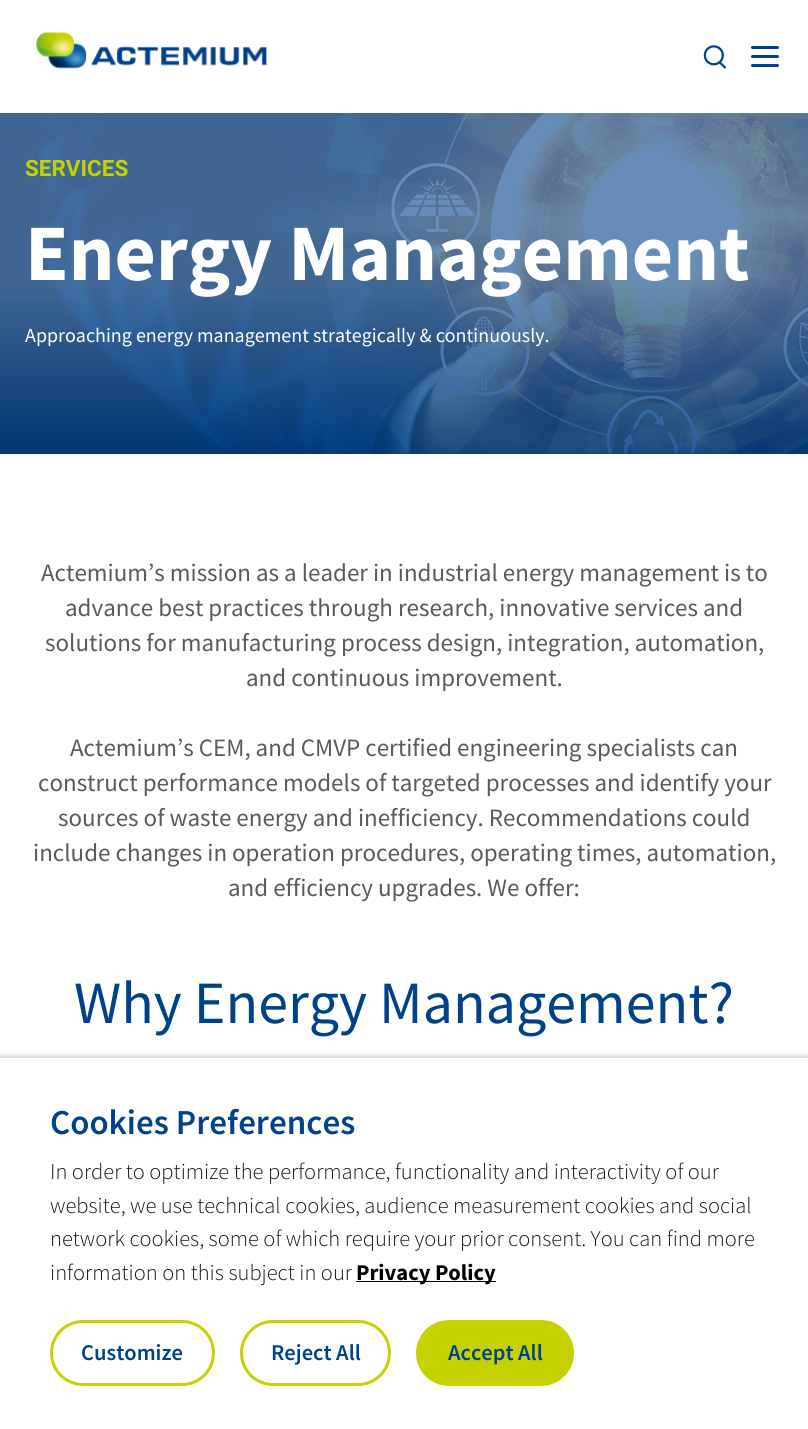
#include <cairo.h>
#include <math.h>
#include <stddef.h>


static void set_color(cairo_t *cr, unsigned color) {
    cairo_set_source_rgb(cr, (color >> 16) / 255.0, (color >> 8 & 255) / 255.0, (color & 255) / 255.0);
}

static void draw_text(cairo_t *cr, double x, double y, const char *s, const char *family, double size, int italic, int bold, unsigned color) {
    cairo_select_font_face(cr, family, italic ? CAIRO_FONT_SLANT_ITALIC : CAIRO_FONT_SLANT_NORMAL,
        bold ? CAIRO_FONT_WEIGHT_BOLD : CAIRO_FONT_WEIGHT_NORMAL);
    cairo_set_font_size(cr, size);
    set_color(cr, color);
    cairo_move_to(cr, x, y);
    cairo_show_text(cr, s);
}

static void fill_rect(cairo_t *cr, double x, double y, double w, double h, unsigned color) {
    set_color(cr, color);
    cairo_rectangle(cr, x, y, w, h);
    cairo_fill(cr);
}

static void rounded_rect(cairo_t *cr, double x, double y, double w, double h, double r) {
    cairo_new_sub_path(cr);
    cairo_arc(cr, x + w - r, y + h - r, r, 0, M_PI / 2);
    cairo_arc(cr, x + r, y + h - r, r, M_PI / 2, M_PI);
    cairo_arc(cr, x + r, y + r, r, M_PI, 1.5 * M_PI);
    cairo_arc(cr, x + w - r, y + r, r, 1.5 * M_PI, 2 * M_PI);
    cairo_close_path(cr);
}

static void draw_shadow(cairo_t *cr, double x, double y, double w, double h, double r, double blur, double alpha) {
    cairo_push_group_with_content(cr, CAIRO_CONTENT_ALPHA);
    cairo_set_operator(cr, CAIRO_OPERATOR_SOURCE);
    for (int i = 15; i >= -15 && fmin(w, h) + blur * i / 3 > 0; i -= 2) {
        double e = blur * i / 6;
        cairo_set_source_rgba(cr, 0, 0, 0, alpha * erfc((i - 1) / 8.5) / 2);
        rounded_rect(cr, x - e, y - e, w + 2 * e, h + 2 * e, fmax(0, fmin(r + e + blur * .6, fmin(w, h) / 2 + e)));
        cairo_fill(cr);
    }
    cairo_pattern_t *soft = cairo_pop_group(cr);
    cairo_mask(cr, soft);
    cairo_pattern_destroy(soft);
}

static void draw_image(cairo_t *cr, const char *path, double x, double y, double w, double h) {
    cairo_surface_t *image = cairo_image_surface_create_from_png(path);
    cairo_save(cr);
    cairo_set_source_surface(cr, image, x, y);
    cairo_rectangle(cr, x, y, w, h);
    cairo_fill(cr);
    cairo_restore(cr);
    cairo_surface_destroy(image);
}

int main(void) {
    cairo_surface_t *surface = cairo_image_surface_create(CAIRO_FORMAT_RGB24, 808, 1429);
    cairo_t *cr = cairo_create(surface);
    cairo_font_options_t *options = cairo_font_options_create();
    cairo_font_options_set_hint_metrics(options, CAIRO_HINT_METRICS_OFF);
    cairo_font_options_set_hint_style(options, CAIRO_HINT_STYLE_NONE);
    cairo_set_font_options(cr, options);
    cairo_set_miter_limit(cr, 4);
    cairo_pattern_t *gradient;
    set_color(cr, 0xFFFFFF);
    cairo_paint(cr);
    draw_image(cr, "assets/img1.png", 36, 31, 232, 38);
    draw_image(cr, "assets/img2.png", 703, 45, 23, 24);
    set_color(cr, 0x004289);
    rounded_rect(cr, 751, 55, 28, 3, 1.5);
    cairo_fill(cr);
    rounded_rect(cr, 751, 46, 28, 3, 1.5);
    cairo_fill(cr);
    rounded_rect(cr, 751, 64, 28, 3, 1.5);
    cairo_fill(cr);
    gradient = cairo_pattern_create_linear(404, 112, 404, 454);
    cairo_pattern_add_color_stop_rgba(gradient, 0.5, 0.294, 0.475, 0.671, 1);
    cairo_pattern_add_color_stop_rgba(gradient, 1, 0, 0.251, 0.529, 1);
    cairo_set_source(cr, gradient);
    cairo_pattern_destroy(gradient);
    cairo_rectangle(cr, 0, 113, 808, 341);
    cairo_fill(cr);
    draw_image(cr, "assets/img3.png", 0, 113, 808, 341);
    draw_text(cr, 25, 176, "SERVICES", "Roboto", 22.5, 0, 1, 0xC6D200);
    draw_text(cr, 25, 280, "Energy Management", "Source Sans Pro", 80, 0, 1, 0xFFFFFF);
    draw_text(cr, 25, 342, "Approaching energy management strategically & continuously.", "Source Sans Pro", 20, 0, 0, 0xFFFFFF);
    draw_text(cr, 41, 581, "Actemium’s mission as a leader in industrial energy management is to", "Source Sans Pro", 25, 0, 0, 0x5A5A5A);
    draw_text(cr, 65, 616, "advance best practices through research, innovative services and", "Source Sans Pro", 25, 0, 0, 0x5A5A5A);
    draw_text(cr, 45, 651, "solutions for manufacturing process design, integration, automation,", "Source Sans Pro", 25, 0, 0, 0x5A5A5A);
    draw_text(cr, 246, 686, "and continuous improvement.", "Source Sans Pro", 25, 0, 0, 0x5A5A5A);
    draw_text(cr, 70, 756, "Actemium’s CEM, and CMVP certified engineering specialists can", "Source Sans Pro", 25, 0, 0, 0x5A5A5A);
    draw_text(cr, 38, 791, "construct performance models of targeted processes and identify your", "Source Sans Pro", 25, 0, 0, 0x5A5A5A);
    draw_text(cr, 58, 826, "sources of waste energy and inefficiency. Recommendations could", "Source Sans Pro", 25, 0, 0, 0x5A5A5A);
    draw_text(cr, 33, 861, "include changes in operation procedures, operating times, automation,", "Source Sans Pro", 25, 0, 0, 0x5A5A5A);
    draw_text(cr, 228, 896, "and efficiency upgrades. We offer:", "Source Sans Pro", 25, 0, 0, 0x5A5A5A);
    draw_text(cr, 74, 1023, "Why Energy Management?", "Source Sans Pro", 60, 0, 0, 0x004289);
    set_color(cr, 0x000000);
    draw_shadow(cr, -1, 1056, 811, 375, 0, 3, 0.2);
    fill_rect(cr, 0, 1058, 808, 371, 0xFFFFFF);
    draw_text(cr, 50, 1134, "Cookies Preferences", "Source Sans Pro SemiBold", 35, 0, 0, 0x004289);
    draw_text(cr, 50, 1179, "In order to optimize the performance, functionality and interactivity of our", "Source Sans Pro Light", 22.5, 0, 0, 0x181818);
    draw_text(cr, 50, 1213, "website, we use technical cookies, audience measurement cookies and social", "Source Sans Pro Light", 22.5, 0, 0, 0x181818);
    draw_text(cr, 50, 1246, "network cookies, some of which require your prior consent. You can find more", "Source Sans Pro Light", 22.5, 0, 0, 0x181818);
    draw_text(cr, 50, 1280, "information on this subject in our", "Source Sans Pro Light", 22.5, 0, 0, 0x181818);
    fill_rect(cr, 356, 1281, 140, 1, 0x000000);
    draw_text(cr, 356, 1280, "Privacy Policy", "Source Sans Pro", 22.5, 0, 1, 0x000000);
    rounded_rect(cr, 51.5, 1321.5, 162, 63, 31.5);
    set_color(cr, 0xC6D200);
    cairo_set_line_width(cr, 3);
    cairo_stroke(cr);
    draw_text(cr, 81, 1360, "Customize", "Source Sans Pro SemiBold", 22.5, 0, 0, 0x004289);
    rounded_rect(cr, 241.5, 1321.5, 148, 63, 31.5);
    set_color(cr, 0xC6D200);
    cairo_stroke(cr);
    draw_text(cr, 271, 1360, "Reject All", "Source Sans Pro SemiBold", 22.5, 0, 0, 0x004289);
    set_color(cr, 0xC6D200);
    rounded_rect(cr, 416, 1320, 158, 66, 33);
    cairo_fill(cr);
    draw_text(cr, 448, 1360, "Accept All", "Source Sans Pro SemiBold", 22.5, 0, 0, 0x004289);
    cairo_surface_write_to_png(surface, "output.png");
    cairo_font_options_destroy(options);
    cairo_destroy(cr);
    cairo_surface_destroy(surface);
    return 0;
}
